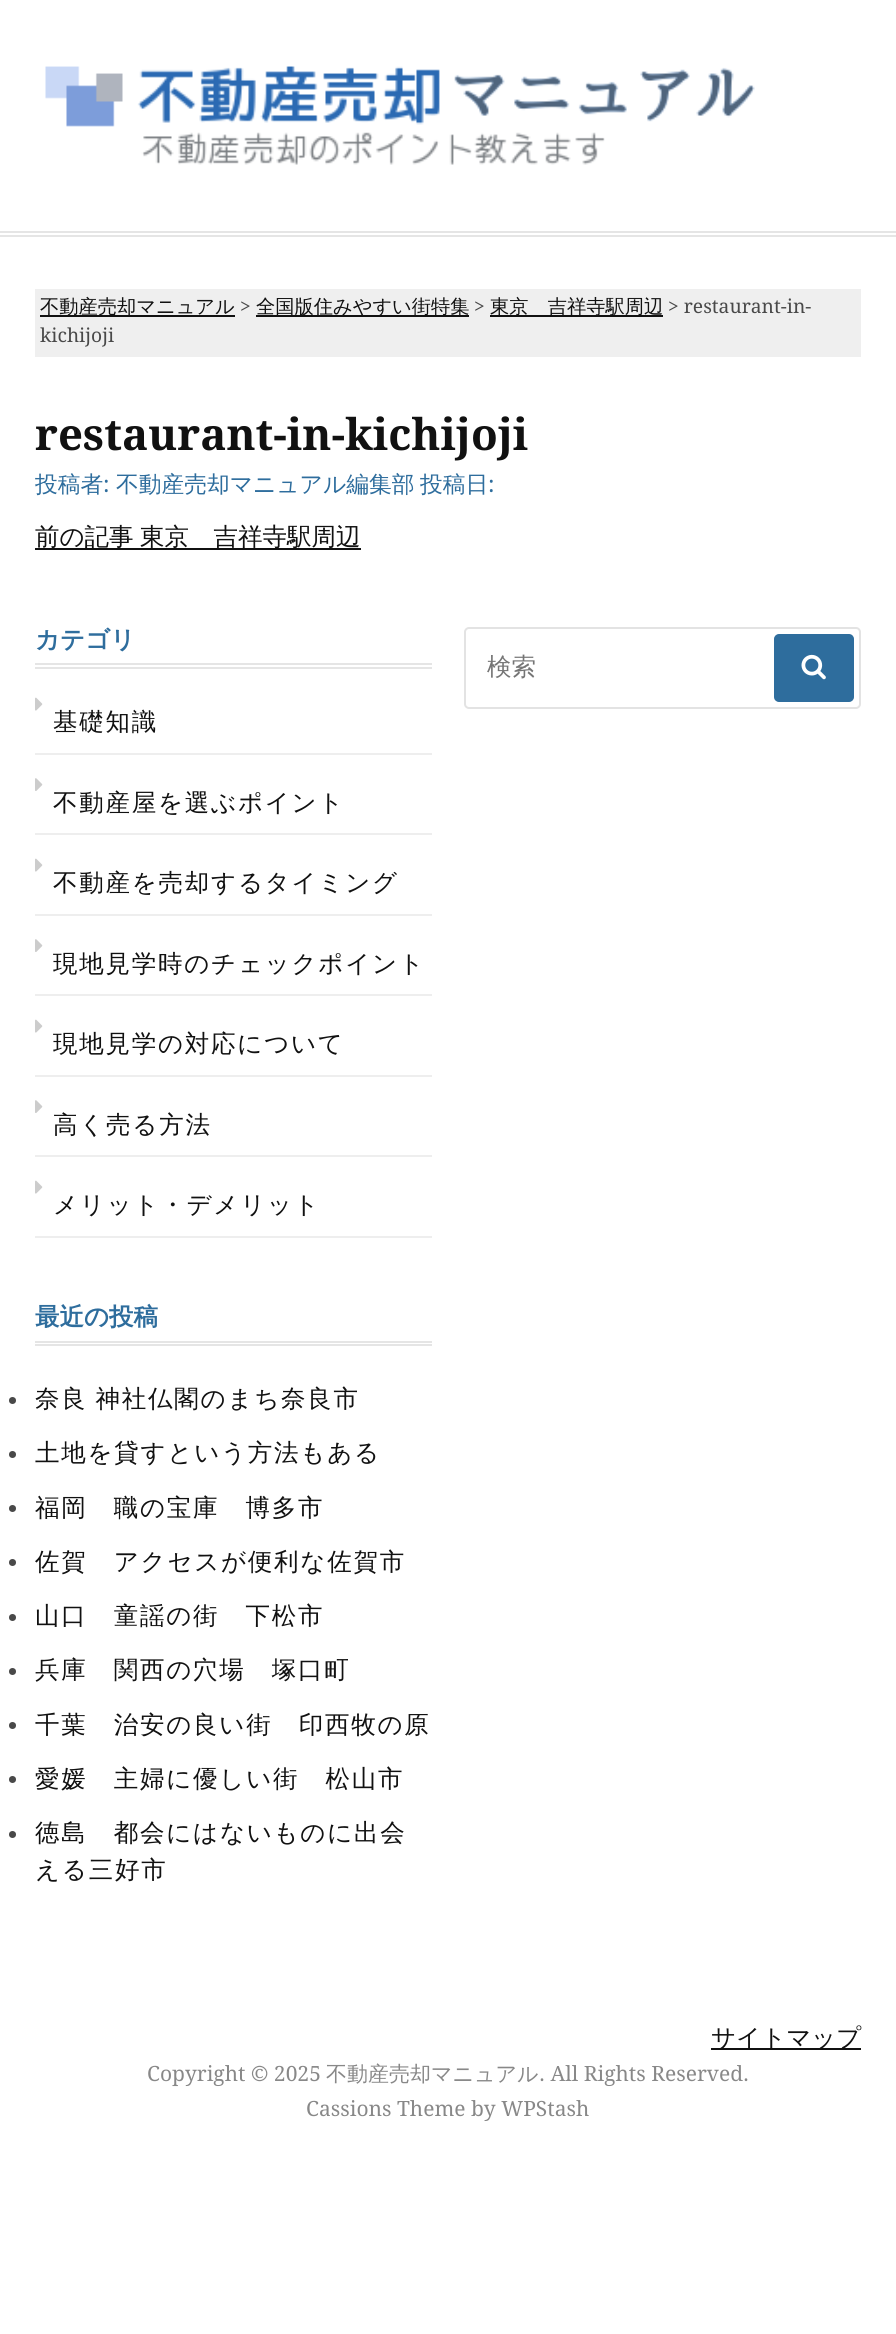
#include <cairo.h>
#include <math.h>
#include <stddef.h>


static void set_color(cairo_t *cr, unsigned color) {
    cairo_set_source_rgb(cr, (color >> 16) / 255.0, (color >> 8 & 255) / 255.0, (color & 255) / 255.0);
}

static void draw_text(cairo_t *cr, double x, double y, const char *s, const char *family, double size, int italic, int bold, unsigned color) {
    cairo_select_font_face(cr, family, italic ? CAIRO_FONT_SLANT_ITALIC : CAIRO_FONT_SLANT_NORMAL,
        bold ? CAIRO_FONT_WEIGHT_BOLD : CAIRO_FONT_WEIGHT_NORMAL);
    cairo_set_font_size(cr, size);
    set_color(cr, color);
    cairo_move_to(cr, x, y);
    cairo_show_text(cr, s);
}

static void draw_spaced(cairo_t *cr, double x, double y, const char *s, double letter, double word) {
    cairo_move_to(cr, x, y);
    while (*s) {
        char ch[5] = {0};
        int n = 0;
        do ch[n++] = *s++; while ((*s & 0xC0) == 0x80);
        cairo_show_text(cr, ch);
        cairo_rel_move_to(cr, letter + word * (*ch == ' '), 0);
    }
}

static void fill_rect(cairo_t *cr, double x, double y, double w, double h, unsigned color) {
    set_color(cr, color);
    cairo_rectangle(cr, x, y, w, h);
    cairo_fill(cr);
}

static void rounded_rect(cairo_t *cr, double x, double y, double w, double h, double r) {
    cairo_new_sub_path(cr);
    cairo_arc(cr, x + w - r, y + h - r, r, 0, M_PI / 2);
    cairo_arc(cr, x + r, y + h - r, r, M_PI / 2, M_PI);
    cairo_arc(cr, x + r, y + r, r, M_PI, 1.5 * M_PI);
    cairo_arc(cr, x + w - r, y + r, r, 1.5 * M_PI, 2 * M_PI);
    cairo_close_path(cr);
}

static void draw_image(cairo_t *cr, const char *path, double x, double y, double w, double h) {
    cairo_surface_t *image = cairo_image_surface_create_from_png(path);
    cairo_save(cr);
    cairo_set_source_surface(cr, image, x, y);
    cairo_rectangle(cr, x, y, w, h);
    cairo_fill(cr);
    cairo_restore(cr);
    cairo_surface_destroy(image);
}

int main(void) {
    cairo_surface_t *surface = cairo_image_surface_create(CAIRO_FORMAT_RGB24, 896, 2334);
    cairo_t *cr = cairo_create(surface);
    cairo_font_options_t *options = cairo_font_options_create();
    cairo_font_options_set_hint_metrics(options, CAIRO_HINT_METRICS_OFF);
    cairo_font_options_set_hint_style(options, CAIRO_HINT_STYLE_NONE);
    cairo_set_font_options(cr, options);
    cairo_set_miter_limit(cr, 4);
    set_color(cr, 0xFFFFFF);
    cairo_paint(cr);
    fill_rect(cr, 0, 231, 896, 2, 0xE5E5E5);
    fill_rect(cr, 0, 235, 896, 2, 0xE5E5E5);
    draw_image(cr, "assets/img1.png", 45, 66, 710, 99);
    fill_rect(cr, 35, 289, 826, 68, 0xEFEFEF);
    fill_rect(cr, 40, 315, 195, 2, 0x111111);
    draw_text(cr, 40, 313, "不動産売却マニュアル", "WenQuanYi Zen Hei Medium", 19.25, 0, 0, 0x111111);
    draw_text(cr, 240, 313, ">", "Droid Serif", 19.25, 0, 0, 0x494949);
    fill_rect(cr, 256, 315, 213, 2, 0x111111);
    draw_text(cr, 256, 313, "全国版住みやすい街特集", "WenQuanYi Zen Hei Medium", 19.25, 0, 0, 0x111111);
    draw_text(cr, 474, 313, ">", "Droid Serif", 19.25, 0, 0, 0x494949);
    fill_rect(cr, 490, 315, 173, 2, 0x111111);
    draw_text(cr, 490, 313, "東京　吉祥寺駅周辺", "WenQuanYi Zen Hei Medium", 19.25, 0, 0, 0x111111);
    draw_text(cr, 668, 313, "> restaurant-in-", "Droid Serif", 19.25, 0, 0, 0x494949);
    draw_text(cr, 40, 342, "kichijoji", "Droid Serif", 19.25, 0, 0, 0x494949);
    draw_text(cr, 35, 450, "restaurant-in-kichijoji", "Droid Serif", 43.75, 0, 1, 0x111111);
    draw_text(cr, 35, 492, "投稿者", "WenQuanYi Zen Hei Medium", 22.75, 0, 0, 0x2E6D9D);
    draw_text(cr, 103, 492, ":", "Droid Serif", 22.75, 0, 0, 0x2E6D9D);
    draw_text(cr, 116, 492, "不動産売却マニュアル編集部", "WenQuanYi Zen Hei Medium", 22.75, 0, 0, 0x2E6D9D);
    draw_text(cr, 420, 492, "投稿日", "WenQuanYi Zen Hei Medium", 22.75, 0, 0, 0x2E6D9D);
    draw_text(cr, 488, 492, ":", "Droid Serif", 22.75, 0, 0, 0x2E6D9D);
    fill_rect(cr, 35, 548, 326, 2, 0x111111);
    draw_text(cr, 35, 545, "前の記事", "WenQuanYi Zen Hei Medium", 24.5, 0, 0, 0x111111);
    draw_text(cr, 140, 545, "東京　吉祥寺駅周辺", "WenQuanYi Zen Hei Medium", 24.5, 0, 0, 0x111111);
    fill_rect(cr, 35, 663, 397, 2, 0xE5E5E5);
    fill_rect(cr, 35, 667, 397, 2, 0xE5E5E5);
    draw_text(cr, 35, 648, "カテゴリ", "WenQuanYi Zen Hei", 24.5, 0, 1, 0x2E6D9D);
    fill_rect(cr, 35, 753, 397, 2, 0xEEEEEE);
    draw_image(cr, "assets/img2.png", 35, 697, 8, 14);
    cairo_select_font_face(cr, "WenQuanYi Zen Hei Medium", CAIRO_FONT_SLANT_NORMAL, CAIRO_FONT_WEIGHT_NORMAL);
    set_color(cr, 0x111111);
    draw_spaced(cr, 53, 730, "基礎知識", 1.75, 0);
    fill_rect(cr, 35, 833, 397, 2, 0xEEEEEE);
    draw_image(cr, "assets/img3.png", 35, 778, 8, 13);
    set_color(cr, 0x111111);
    draw_spaced(cr, 53, 811, "不動産屋を選ぶポイント", 1.75, 0);
    fill_rect(cr, 35, 914, 397, 2, 0xEEEEEE);
    draw_image(cr, "assets/img2.png", 35, 858, 8, 14);
    set_color(cr, 0x111111);
    draw_spaced(cr, 53, 891, "不動産を売却するタイミング", 1.75, 0);
    fill_rect(cr, 35, 994, 397, 2, 0xEEEEEE);
    draw_image(cr, "assets/img3.png", 35, 939, 8, 13);
    set_color(cr, 0x111111);
    draw_spaced(cr, 53, 972, "現地見学時のチェックポイント", 1.75, 0);
    fill_rect(cr, 35, 1075, 397, 2, 0xEEEEEE);
    draw_image(cr, "assets/img2.png", 35, 1019, 8, 14);
    set_color(cr, 0x111111);
    draw_spaced(cr, 53, 1052, "現地見学の対応について", 1.75, 0);
    fill_rect(cr, 35, 1155, 397, 2, 0xEEEEEE);
    draw_image(cr, "assets/img3.png", 35, 1100, 8, 13);
    set_color(cr, 0x111111);
    draw_spaced(cr, 53, 1133, "高く売る方法", 1.75, 0);
    fill_rect(cr, 35, 1236, 397, 2, 0xEEEEEE);
    draw_image(cr, "assets/img2.png", 35, 1180, 8, 14);
    set_color(cr, 0x111111);
    draw_spaced(cr, 53, 1213, "メリット・デメリット", 1.75, 0);
    rounded_rect(cr, 465, 628, 395, 80, 4);
    set_color(cr, 0xE3E3E3);
    cairo_stroke(cr);
    draw_text(cr, 487, 675, "検索", "WenQuanYi Zen Hei Medium", 24.5, 0, 0, 0x757575);
    set_color(cr, 0x2E6D9D);
    rounded_rect(cr, 775, 635, 78, 66, 4);
    cairo_fill_preserve(cr);
    cairo_stroke(cr);
    draw_image(cr, "assets/img4.png", 801, 654, 25, 26);
    fill_rect(cr, 35, 1341, 397, 2, 0xE5E5E5);
    fill_rect(cr, 35, 1344, 397, 2, 0xE5E5E5);
    draw_text(cr, 35, 1325, "最近の投稿", "WenQuanYi Zen Hei", 24.5, 0, 1, 0x2E6D9D);
    set_color(cr, 0x494949);
    cairo_new_path(cr);
    cairo_arc(cr, 12.5, 1400.5, 3.5, 0, 2 * M_PI);
    cairo_fill(cr);
    cairo_select_font_face(cr, "WenQuanYi Zen Hei Medium", CAIRO_FONT_SLANT_NORMAL, CAIRO_FONT_WEIGHT_NORMAL);
    set_color(cr, 0x111111);
    draw_spaced(cr, 35, 1407, "奈良 神社仏閣のまち奈良市", 1.75, -1);
    set_color(cr, 0x494949);
    cairo_new_path(cr);
    cairo_arc(cr, 12.5, 1454.5, 3.5, 0, 2 * M_PI);
    cairo_fill(cr);
    set_color(cr, 0x111111);
    draw_spaced(cr, 35, 1461, "土地を貸すという方法もある", 1.75, 0);
    set_color(cr, 0x494949);
    cairo_new_path(cr);
    cairo_arc(cr, 12.5, 1508.5, 3.5, 0, 2 * M_PI);
    cairo_fill(cr);
    set_color(cr, 0x111111);
    draw_spaced(cr, 35, 1516, "福岡　職の宝庫　博多市", 1.75, 0);
    set_color(cr, 0x494949);
    cairo_new_path(cr);
    cairo_arc(cr, 12.5, 1562.5, 3.5, 0, 2 * M_PI);
    cairo_fill(cr);
    set_color(cr, 0x111111);
    draw_spaced(cr, 35, 1570, "佐賀　アクセスが便利な佐賀市", 1.75, 0);
    set_color(cr, 0x494949);
    cairo_new_path(cr);
    cairo_arc(cr, 12.5, 1617.5, 3.5, 0, 2 * M_PI);
    cairo_fill(cr);
    set_color(cr, 0x111111);
    draw_spaced(cr, 35, 1624, "山口　童謡の街　下松市", 1.75, 0);
    set_color(cr, 0x494949);
    cairo_new_path(cr);
    cairo_arc(cr, 12.5, 1671.5, 3.5, 0, 2 * M_PI);
    cairo_fill(cr);
    set_color(cr, 0x111111);
    draw_spaced(cr, 35, 1678, "兵庫　関西の穴場　塚口町", 1.75, 0);
    set_color(cr, 0x494949);
    cairo_new_path(cr);
    cairo_arc(cr, 12.5, 1725.5, 3.5, 0, 2 * M_PI);
    cairo_fill(cr);
    set_color(cr, 0x111111);
    draw_spaced(cr, 35, 1733, "千葉　治安の良い街　印西牧の原", 1.75, 0);
    set_color(cr, 0x494949);
    cairo_new_path(cr);
    cairo_arc(cr, 12.5, 1779.5, 3.5, 0, 2 * M_PI);
    cairo_fill(cr);
    set_color(cr, 0x111111);
    draw_spaced(cr, 35, 1787, "愛媛　主婦に優しい街　松山市", 1.75, 0);
    set_color(cr, 0x494949);
    cairo_new_path(cr);
    cairo_arc(cr, 12.5, 1834.5, 3.5, 0, 2 * M_PI);
    cairo_fill(cr);
    set_color(cr, 0x111111);
    draw_spaced(cr, 35, 1841, "徳島　都会にはないものに出会", 1.75, 0);
    draw_spaced(cr, 35, 1878, "える三好市", 1.75, 0);
    fill_rect(cr, 711, 2048, 150, 2, 0x111111);
    draw_text(cr, 711, 2046, "サイトマップ", "WenQuanYi Zen Hei Medium", 24.5, 0, 0, 0x111111);
    draw_text(cr, 147, 2081, "Copyright © 2025", "Droid Serif", 21, 0, 0, 0x888888);
    draw_text(cr, 326, 2081, "不動産売却マニュアル", "WenQuanYi Zen Hei Medium", 21, 0, 0, 0x888888);
    draw_text(cr, 539, 2081, ". All Rights Reserved.", "Droid Serif", 21, 0, 0, 0x888888);
    draw_text(cr, 306, 2116, "Cassions Theme by WPStash", "Droid Serif", 21, 0, 0, 0x888888);
    cairo_surface_write_to_png(surface, "output.png");
    cairo_font_options_destroy(options);
    cairo_destroy(cr);
    cairo_surface_destroy(surface);
    return 0;
}
